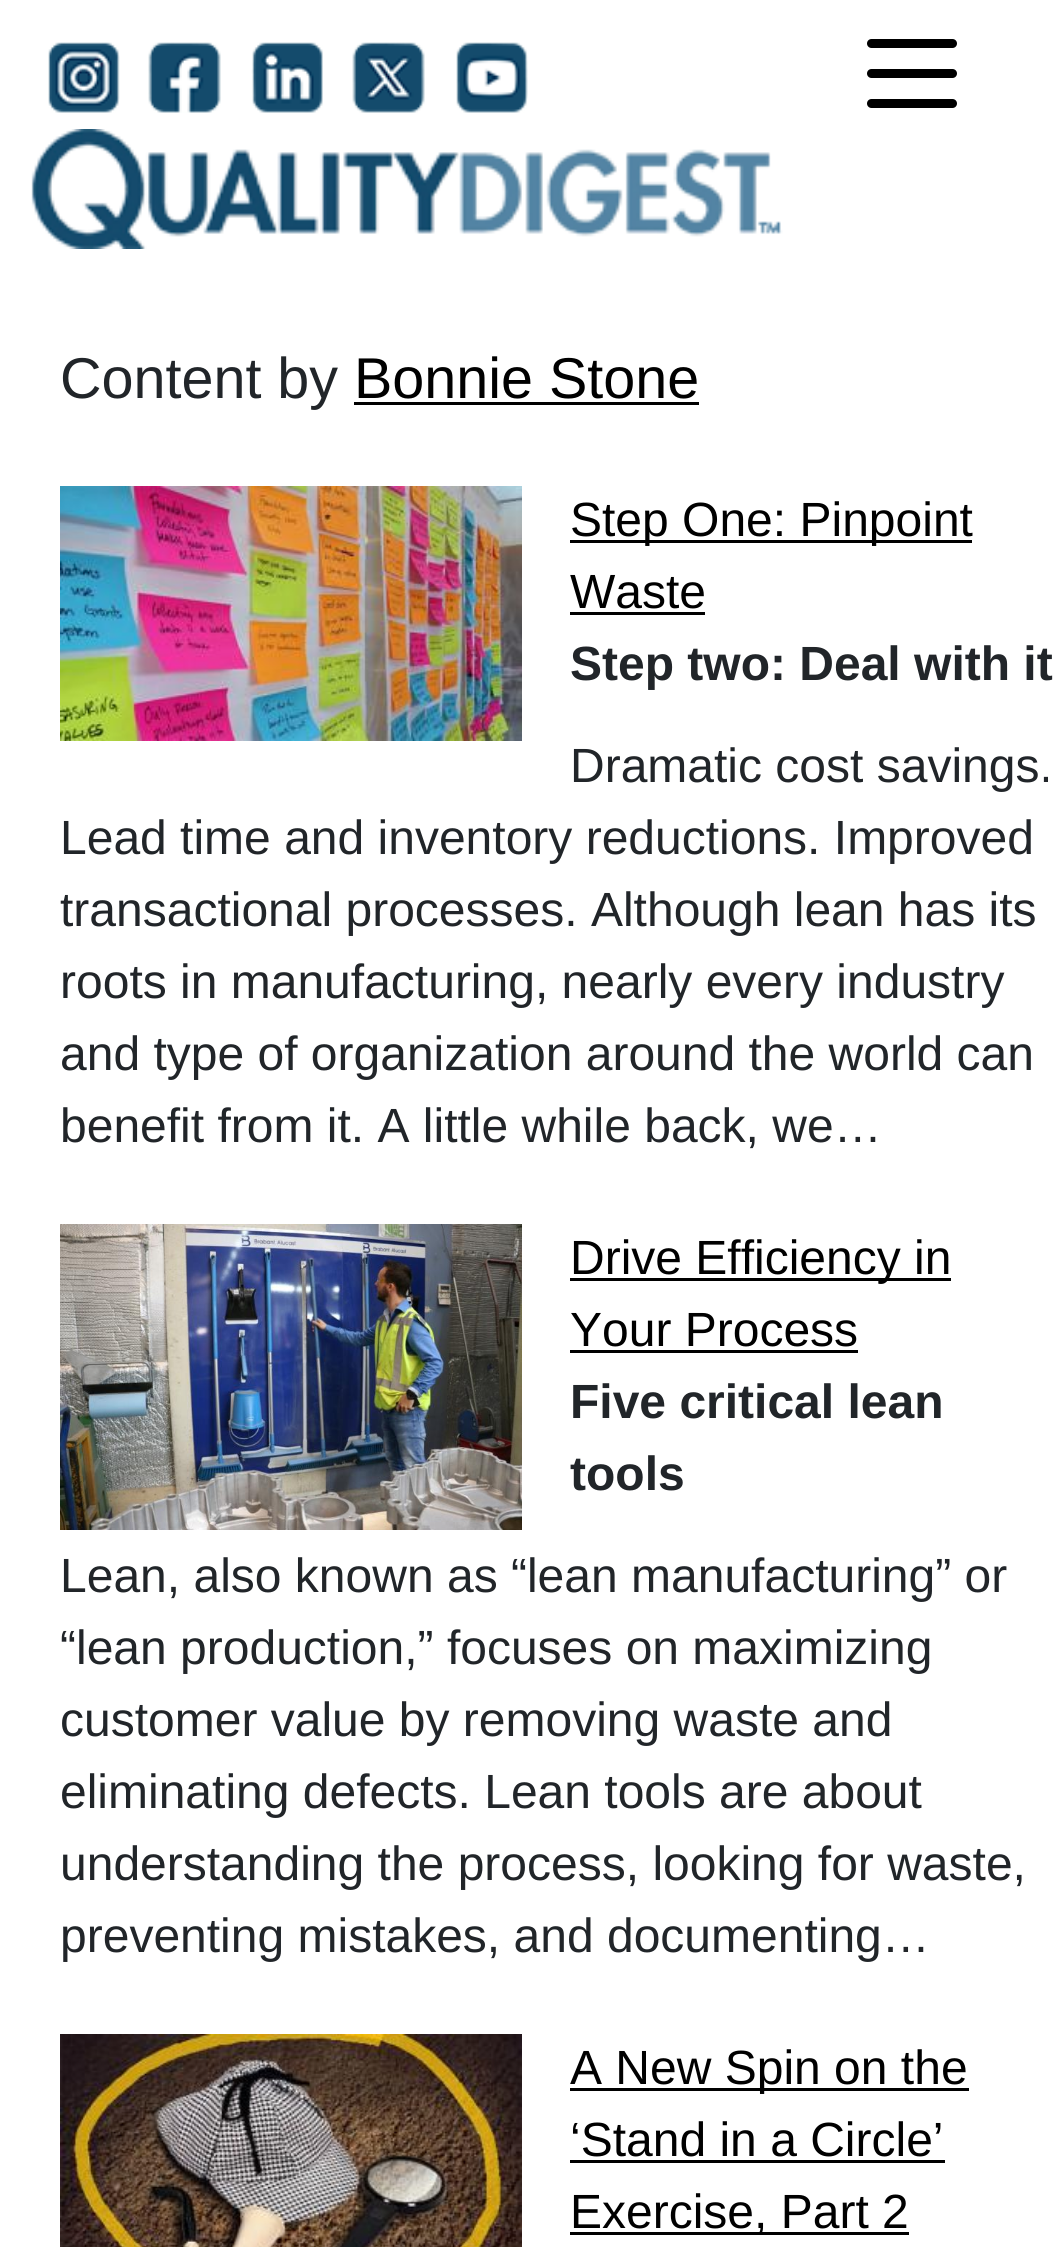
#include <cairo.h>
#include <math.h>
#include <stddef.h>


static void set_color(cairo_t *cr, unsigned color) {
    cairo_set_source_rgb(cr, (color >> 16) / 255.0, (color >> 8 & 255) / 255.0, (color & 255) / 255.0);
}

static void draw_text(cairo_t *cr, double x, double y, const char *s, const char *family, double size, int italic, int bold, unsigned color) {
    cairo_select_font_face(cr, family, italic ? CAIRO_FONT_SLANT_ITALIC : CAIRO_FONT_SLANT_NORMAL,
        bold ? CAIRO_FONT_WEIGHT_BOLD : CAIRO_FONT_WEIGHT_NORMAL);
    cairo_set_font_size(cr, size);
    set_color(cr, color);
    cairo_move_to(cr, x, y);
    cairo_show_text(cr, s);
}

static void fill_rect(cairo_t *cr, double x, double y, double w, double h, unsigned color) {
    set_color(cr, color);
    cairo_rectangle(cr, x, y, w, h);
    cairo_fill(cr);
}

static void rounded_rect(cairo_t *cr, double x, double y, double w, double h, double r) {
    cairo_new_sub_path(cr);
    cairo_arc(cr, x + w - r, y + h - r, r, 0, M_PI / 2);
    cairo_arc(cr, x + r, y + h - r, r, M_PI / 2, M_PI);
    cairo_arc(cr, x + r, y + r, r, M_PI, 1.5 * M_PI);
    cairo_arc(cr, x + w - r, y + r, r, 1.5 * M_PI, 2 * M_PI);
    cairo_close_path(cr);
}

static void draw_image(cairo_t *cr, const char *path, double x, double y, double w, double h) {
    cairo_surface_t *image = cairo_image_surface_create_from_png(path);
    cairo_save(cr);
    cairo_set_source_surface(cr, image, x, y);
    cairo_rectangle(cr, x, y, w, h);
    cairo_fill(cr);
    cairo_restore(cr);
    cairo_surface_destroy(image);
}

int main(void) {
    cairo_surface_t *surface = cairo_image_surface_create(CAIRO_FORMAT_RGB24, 1062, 2247);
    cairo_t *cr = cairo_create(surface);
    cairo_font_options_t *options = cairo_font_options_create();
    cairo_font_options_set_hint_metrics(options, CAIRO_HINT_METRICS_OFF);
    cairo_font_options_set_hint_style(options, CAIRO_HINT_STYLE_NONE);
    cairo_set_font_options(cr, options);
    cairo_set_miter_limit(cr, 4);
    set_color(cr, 0xFFFFFF);
    cairo_paint(cr);
    draw_image(cr, "assets/img1.png", 48, 42, 72, 71);
    draw_image(cr, "assets/img2.png", 148, 42, 73, 71);
    draw_image(cr, "assets/img3.png", 251, 42, 72, 71);
    draw_image(cr, "assets/img4.png", 352, 42, 73, 71);
    draw_image(cr, "assets/img5.png", 456, 42, 72, 71);
    draw_image(cr, "assets/img6.png", 31, 129, 752, 120);
    set_color(cr, 0x000000);
    rounded_rect(cr, 867, 69, 90, 9, 4.5);
    cairo_fill(cr);
    rounded_rect(cr, 867, 39, 90, 9, 4.5);
    cairo_fill(cr);
    rounded_rect(cr, 867, 99, 90, 9, 4.5);
    cairo_fill(cr);
    draw_text(cr, 60, 398, "Content by", "Liberation Sans", 57.5, 0, 0, 0x212529);
    draw_text(cr, 354, 398, "Bonnie Stone", "Liberation Sans", 57.5, 0, 0, 0x000000);
    fill_rect(cr, 354, 402, 345, 3, 0x000000);
    draw_image(cr, "assets/img7.png", 60, 486, 462, 255);
    fill_rect(cr, 570, 540, 402, 3, 0x000000);
    draw_text(cr, 570, 536, "Step One: Pinpoint", "Liberation Sans", 48, 0, 0, 0x000000);
    draw_text(cr, 570, 608, "Waste", "Liberation Sans", 48, 0, 0, 0x000000);
    fill_rect(cr, 570, 612, 135, 3, 0x000000);
    draw_text(cr, 570, 680, "Step two: Deal with it", "Liberation Sans", 48, 0, 1, 0x212529);
    draw_text(cr, 570, 782, "Dramatic cost savings.", "Liberation Sans", 48, 0, 0, 0x212529);
    draw_text(cr, 60, 854, "Lead time and inventory reductions. Improved", "Liberation Sans", 48, 0, 0, 0x212529);
    draw_text(cr, 60, 926, "transactional processes. Although lean has its", "Liberation Sans", 48, 0, 0, 0x212529);
    draw_text(cr, 60, 998, "roots in manufacturing, nearly every industry", "Liberation Sans", 48, 0, 0, 0x212529);
    draw_text(cr, 60, 1070, "and type of organization around the world can", "Liberation Sans", 48, 0, 0, 0x212529);
    draw_text(cr, 60, 1142, "benefit from it. A little while back, we…", "Liberation Sans", 48, 0, 0, 0x212529);
    draw_image(cr, "assets/img8.png", 60, 1224, 462, 306);
    fill_rect(cr, 570, 1278, 381, 3, 0x000000);
    draw_text(cr, 570, 1274, "Drive Efficiency in", "Liberation Sans", 48, 0, 0, 0x000000);
    draw_text(cr, 570, 1346, "Your Process", "Liberation Sans", 48, 0, 0, 0x000000);
    fill_rect(cr, 570, 1350, 288, 3, 0x000000);
    draw_text(cr, 570, 1418, "Five critical lean", "Liberation Sans", 48, 0, 1, 0x212529);
    draw_text(cr, 570, 1490, "tools", "Liberation Sans", 48, 0, 1, 0x212529);
    draw_text(cr, 60, 1592, "Lean, also known as “lean manufacturing” or", "Liberation Sans", 48, 0, 0, 0x212529);
    draw_text(cr, 60, 1664, "“lean production,” focuses on maximizing", "Liberation Sans", 48, 0, 0, 0x212529);
    draw_text(cr, 60, 1736, "customer value by removing waste and", "Liberation Sans", 48, 0, 0, 0x212529);
    draw_text(cr, 60, 1808, "eliminating defects. Lean tools are about", "Liberation Sans", 48, 0, 0, 0x212529);
    draw_text(cr, 60, 1880, "understanding the process, looking for waste,", "Liberation Sans", 48, 0, 0, 0x212529);
    draw_text(cr, 60, 1952, "preventing mistakes, and documenting…", "Liberation Sans", 48, 0, 0, 0x212529);
    draw_image(cr, "assets/img9.png", 60, 2034, 462, 213);
    fill_rect(cr, 570, 2088, 399, 3, 0x000000);
    draw_text(cr, 570, 2084, "A New Spin on the", "Liberation Sans", 48, 0, 0, 0x000000);
    draw_text(cr, 570, 2156, "‘Stand in a Circle’", "Liberation Sans", 48, 0, 0, 0x000000);
    fill_rect(cr, 570, 2160, 375, 3, 0x000000);
    fill_rect(cr, 570, 2232, 339, 3, 0x000000);
    draw_text(cr, 570, 2228, "Exercise, Part 2", "Liberation Sans", 48, 0, 0, 0x000000);
    cairo_surface_write_to_png(surface, "output.png");
    cairo_font_options_destroy(options);
    cairo_destroy(cr);
    cairo_surface_destroy(surface);
    return 0;
}
